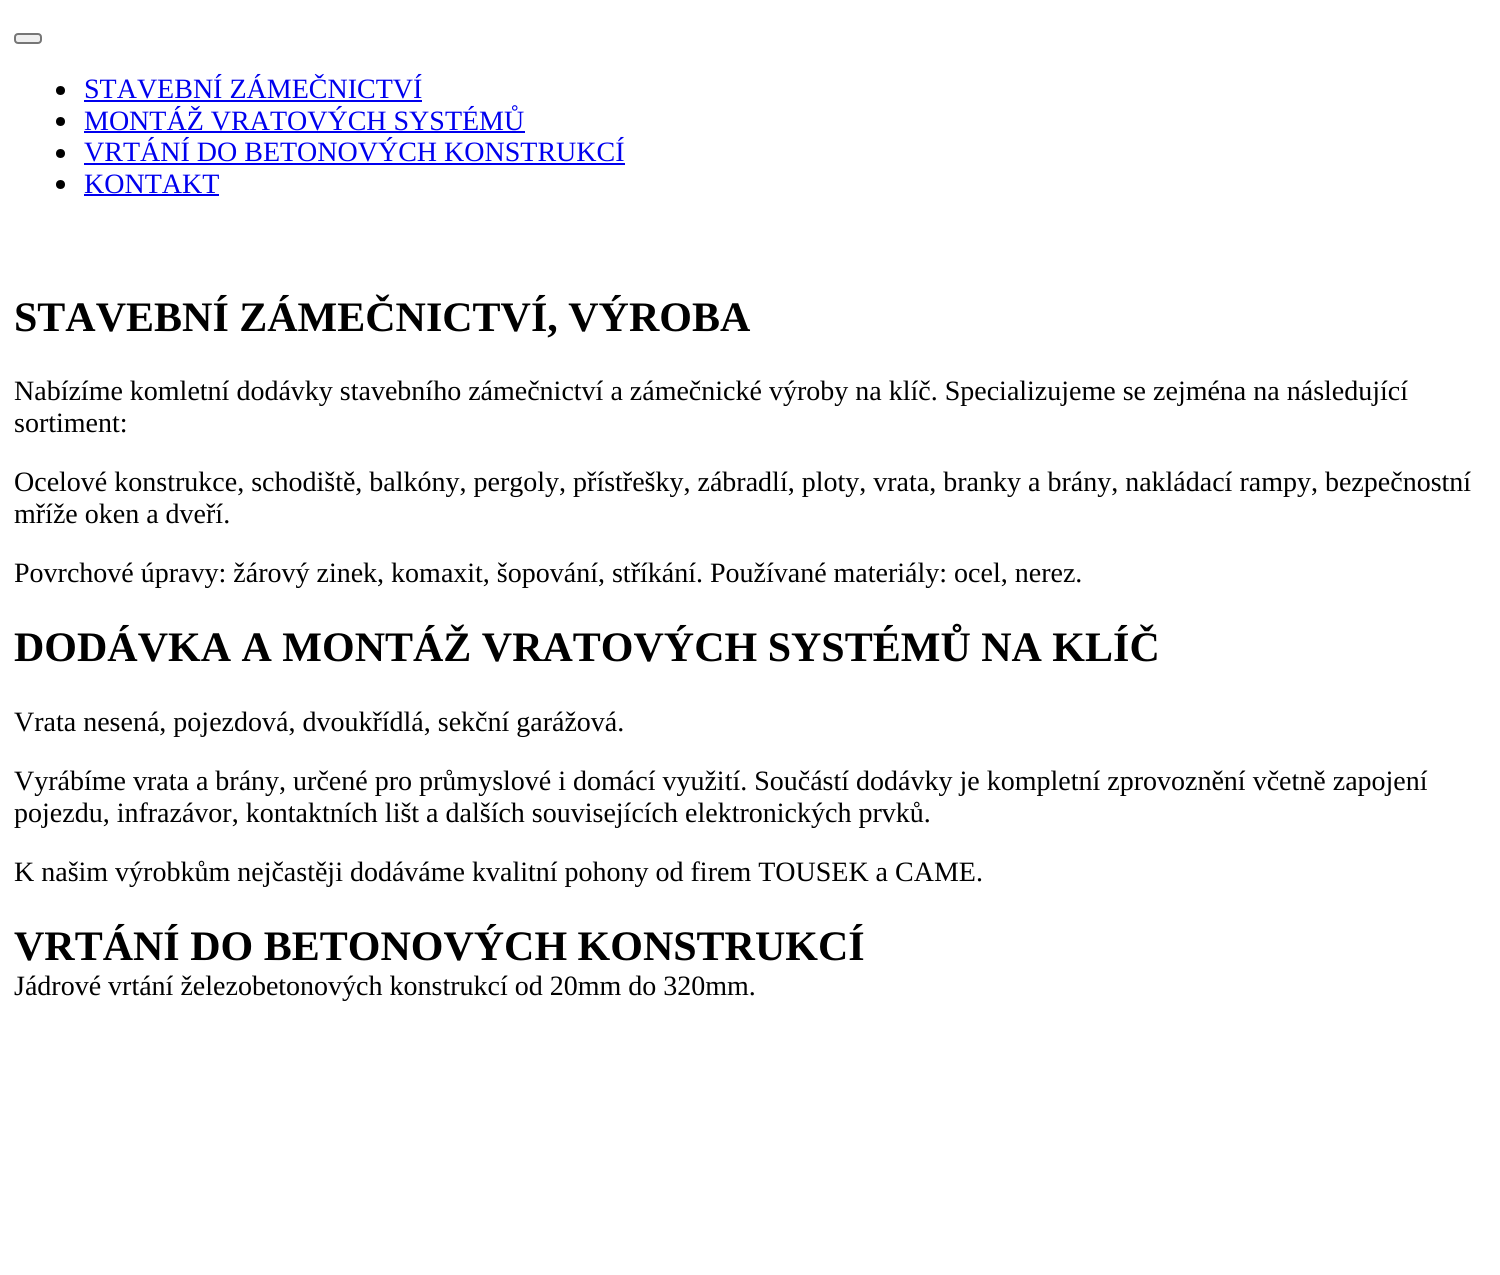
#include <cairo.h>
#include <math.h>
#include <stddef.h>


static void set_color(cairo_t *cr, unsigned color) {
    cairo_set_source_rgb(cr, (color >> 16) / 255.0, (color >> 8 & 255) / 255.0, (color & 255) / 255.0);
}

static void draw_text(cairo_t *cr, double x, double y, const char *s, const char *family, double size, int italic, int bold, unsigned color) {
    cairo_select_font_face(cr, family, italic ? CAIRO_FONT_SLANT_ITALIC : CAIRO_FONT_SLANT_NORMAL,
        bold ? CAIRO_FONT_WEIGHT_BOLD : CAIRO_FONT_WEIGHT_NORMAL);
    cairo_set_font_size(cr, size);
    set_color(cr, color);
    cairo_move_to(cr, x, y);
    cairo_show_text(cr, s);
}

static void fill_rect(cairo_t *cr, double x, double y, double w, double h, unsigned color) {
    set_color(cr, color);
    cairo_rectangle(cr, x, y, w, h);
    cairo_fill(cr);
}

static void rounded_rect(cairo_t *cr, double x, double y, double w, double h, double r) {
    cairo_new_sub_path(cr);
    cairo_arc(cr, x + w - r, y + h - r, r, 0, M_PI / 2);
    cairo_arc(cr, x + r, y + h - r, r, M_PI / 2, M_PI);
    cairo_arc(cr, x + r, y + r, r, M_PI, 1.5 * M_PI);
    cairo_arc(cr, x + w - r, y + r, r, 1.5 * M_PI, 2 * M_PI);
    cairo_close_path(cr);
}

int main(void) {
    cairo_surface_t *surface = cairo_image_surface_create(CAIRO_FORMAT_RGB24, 1500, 1275);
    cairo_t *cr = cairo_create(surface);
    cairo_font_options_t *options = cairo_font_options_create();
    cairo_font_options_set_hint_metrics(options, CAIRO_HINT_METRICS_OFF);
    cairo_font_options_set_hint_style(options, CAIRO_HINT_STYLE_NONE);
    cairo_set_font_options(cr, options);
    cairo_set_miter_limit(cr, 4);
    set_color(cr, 0xFFFFFF);
    cairo_paint(cr);
    set_color(cr, 0xEFEFEF);
    rounded_rect(cr, 15, 34, 26, 9, 3);
    cairo_fill_preserve(cr);
    set_color(cr, 0x767676);
    cairo_stroke(cr);
    set_color(cr, 0x000000);
    cairo_arc(cr, 60.5, 90.5, 4.5, 0, 2 * M_PI);
    cairo_fill(cr);
    draw_text(cr, 84, 98, "STAVEBNÍ ZÁMEČNICTVÍ", "Liberation Serif", 28, 0, 0, 0x0000EE);
    fill_rect(cr, 84, 100, 338, 2, 0x0000EE);
    set_color(cr, 0x000000);
    cairo_new_path(cr);
    cairo_arc(cr, 60.5, 121.5, 4.5, 0, 2 * M_PI);
    cairo_fill(cr);
    draw_text(cr, 84, 130, "MONTÁŽ VRATOVÝCH SYSTÉMŮ", "Liberation Serif", 28, 0, 0, 0x0000EE);
    fill_rect(cr, 84, 131, 441, 2, 0x0000EE);
    set_color(cr, 0x000000);
    cairo_new_path(cr);
    cairo_arc(cr, 60.5, 153.5, 4.5, 0, 2 * M_PI);
    cairo_fill(cr);
    draw_text(cr, 84, 161, "VRTÁNÍ DO BETONOVÝCH KONSTRUKCÍ", "Liberation Serif", 28, 0, 0, 0x0000EE);
    fill_rect(cr, 84, 163, 541, 2, 0x0000EE);
    set_color(cr, 0x000000);
    cairo_new_path(cr);
    cairo_arc(cr, 60.5, 184.5, 4.5, 0, 2 * M_PI);
    cairo_fill(cr);
    draw_text(cr, 84, 193, "KONTAKT", "Liberation Serif", 28, 0, 0, 0x0000EE);
    fill_rect(cr, 84, 194, 135, 2, 0x0000EE);
    draw_text(cr, 14, 331, "STAVEBNÍ ZÁMEČNICTVÍ, VÝROBA", "Liberation Serif", 42, 0, 1, 0x000000);
    draw_text(cr, 14, 400, "Nabízíme komletní dodávky stavebního zámečnictví a zámečnické výroby na klíč. Specializujeme se zejména na následující", "Liberation Serif", 28, 0, 0, 0x000000);
    draw_text(cr, 14, 432, "sortiment:", "Liberation Serif", 28, 0, 0, 0x000000);
    draw_text(cr, 14, 491, "Ocelové konstrukce, schodiště, balkóny, pergoly, přístřešky, zábradlí, ploty, vrata, branky a brány, nakládací rampy, bezpečnostní", "Liberation Serif", 28, 0, 0, 0x000000);
    draw_text(cr, 14, 523, "mříže oken a dveří.", "Liberation Serif", 28, 0, 0, 0x000000);
    draw_text(cr, 14, 582, "Povrchové úpravy: žárový zinek, komaxit, šopování, stříkání. Používané materiály: ocel, nerez.", "Liberation Serif", 28, 0, 0, 0x000000);
    draw_text(cr, 14, 661, "DODÁVKA A MONTÁŽ VRATOVÝCH SYSTÉMŮ NA KLÍČ", "Liberation Serif", 42, 0, 1, 0x000000);
    draw_text(cr, 14, 731, "Vrata nesená, pojezdová, dvoukřídlá, sekční garážová.", "Liberation Serif", 28, 0, 0, 0x000000);
    draw_text(cr, 14, 790, "Vyrábíme vrata a brány, určené pro průmyslové i domácí využití. Součástí dodávky je kompletní zprovoznění včetně zapojení", "Liberation Serif", 28, 0, 0, 0x000000);
    draw_text(cr, 14, 822, "pojezdu, infrazávor, kontaktních lišt a dalších souvisejících elektronických prvků.", "Liberation Serif", 28, 0, 0, 0x000000);
    draw_text(cr, 14, 881, "K našim výrobkům nejčastěji dodáváme kvalitní pohony od firem TOUSEK a CAME.", "Liberation Serif", 28, 0, 0, 0x000000);
    draw_text(cr, 14, 960, "VRTÁNÍ DO BETONOVÝCH KONSTRUKCÍ", "Liberation Serif", 42, 0, 1, 0x000000);
    draw_text(cr, 14, 995, "Jádrové vrtání železobetonových konstrukcí od 20mm do 320mm.", "Liberation Serif", 28, 0, 0, 0x000000);
    cairo_surface_write_to_png(surface, "output.png");
    cairo_font_options_destroy(options);
    cairo_destroy(cr);
    cairo_surface_destroy(surface);
    return 0;
}
